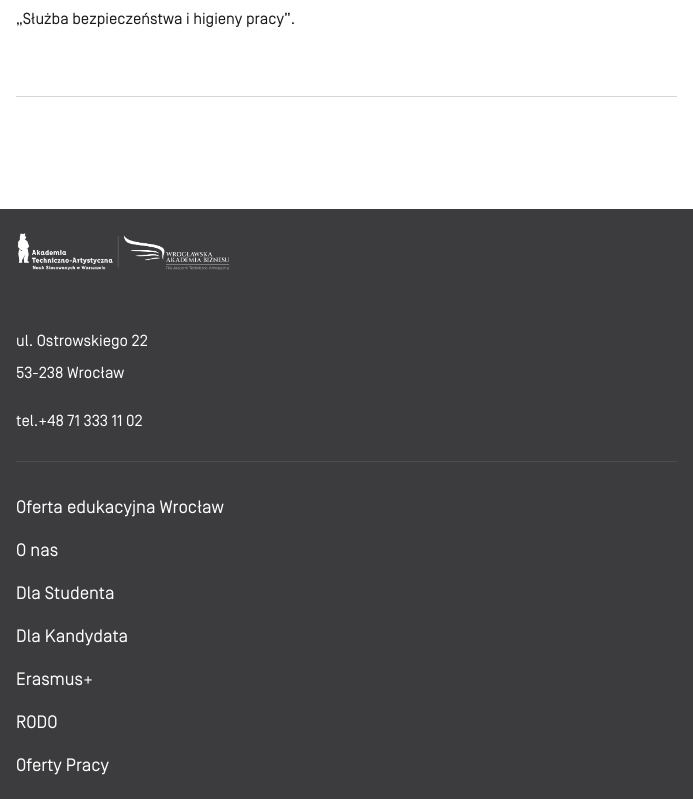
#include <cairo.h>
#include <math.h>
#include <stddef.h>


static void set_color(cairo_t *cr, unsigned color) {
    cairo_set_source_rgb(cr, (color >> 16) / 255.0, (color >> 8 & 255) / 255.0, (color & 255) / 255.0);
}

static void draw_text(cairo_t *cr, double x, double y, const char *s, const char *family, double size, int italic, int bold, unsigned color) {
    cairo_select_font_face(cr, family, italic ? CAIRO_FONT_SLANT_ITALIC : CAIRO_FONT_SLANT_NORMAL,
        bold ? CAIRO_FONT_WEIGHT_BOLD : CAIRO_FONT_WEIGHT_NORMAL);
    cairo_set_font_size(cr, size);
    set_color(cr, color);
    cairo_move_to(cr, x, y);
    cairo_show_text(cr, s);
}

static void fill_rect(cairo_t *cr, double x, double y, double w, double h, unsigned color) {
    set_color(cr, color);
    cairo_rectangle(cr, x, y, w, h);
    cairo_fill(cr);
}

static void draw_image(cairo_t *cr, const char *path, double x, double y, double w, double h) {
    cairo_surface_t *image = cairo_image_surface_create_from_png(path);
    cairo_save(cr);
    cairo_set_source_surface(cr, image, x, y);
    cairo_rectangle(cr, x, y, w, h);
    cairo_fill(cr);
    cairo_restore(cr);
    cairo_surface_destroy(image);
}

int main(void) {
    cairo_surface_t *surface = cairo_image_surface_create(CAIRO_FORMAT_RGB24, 693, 799);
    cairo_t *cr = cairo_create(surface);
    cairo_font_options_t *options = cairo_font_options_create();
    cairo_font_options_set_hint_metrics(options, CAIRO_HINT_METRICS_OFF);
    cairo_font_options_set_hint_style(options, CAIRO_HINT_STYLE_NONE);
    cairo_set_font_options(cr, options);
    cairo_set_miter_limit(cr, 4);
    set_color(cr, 0xFFFFFF);
    cairo_paint(cr);
    draw_text(cr, 16, 24, "„Służba bezpieczeństwa i higieny pracy”.", "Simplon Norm", 16, 0, 0, 0x191919);
    fill_rect(cr, 16, 96, 661, 1, 0xD7D7D7);
    fill_rect(cr, 0, 209, 693, 590, 0x3C3C3F);
    fill_rect(cr, 16, 461, 661, 1, 0x4C4C4E);
    draw_image(cr, "assets/img1.png", 17, 233, 213, 37);
    draw_text(cr, 16, 346, "ul. Ostrowskiego 22", "Simplon Norm", 16, 0, 0, 0xFFFFFF);
    draw_text(cr, 16, 378, "53-238 Wrocław", "Simplon Norm", 16, 0, 0, 0xFFFFFF);
    draw_text(cr, 16, 426, "tel.+48 71 333 11 02", "Simplon Norm", 16, 0, 0, 0xFFFFFF);
    draw_text(cr, 16, 513, "Oferta edukacyjna Wrocław", "Simplon Norm", 18, 0, 0, 0xFFFFFF);
    draw_text(cr, 16, 556, "O nas", "Simplon Norm", 18, 0, 0, 0xFFFFFF);
    draw_text(cr, 16, 599, "Dla Studenta", "Simplon Norm", 18, 0, 0, 0xFFFFFF);
    draw_text(cr, 16, 642, "Dla Kandydata", "Simplon Norm", 18, 0, 0, 0xFFFFFF);
    draw_text(cr, 16, 685, "Erasmus+", "Simplon Norm", 18, 0, 0, 0xFFFFFF);
    draw_text(cr, 16, 728, "RODO", "Simplon Norm", 18, 0, 0, 0xFFFFFF);
    draw_text(cr, 16, 771, "Oferty Pracy", "Simplon Norm", 18, 0, 0, 0xFFFFFF);
    cairo_surface_write_to_png(surface, "output.png");
    cairo_font_options_destroy(options);
    cairo_destroy(cr);
    cairo_surface_destroy(surface);
    return 0;
}
